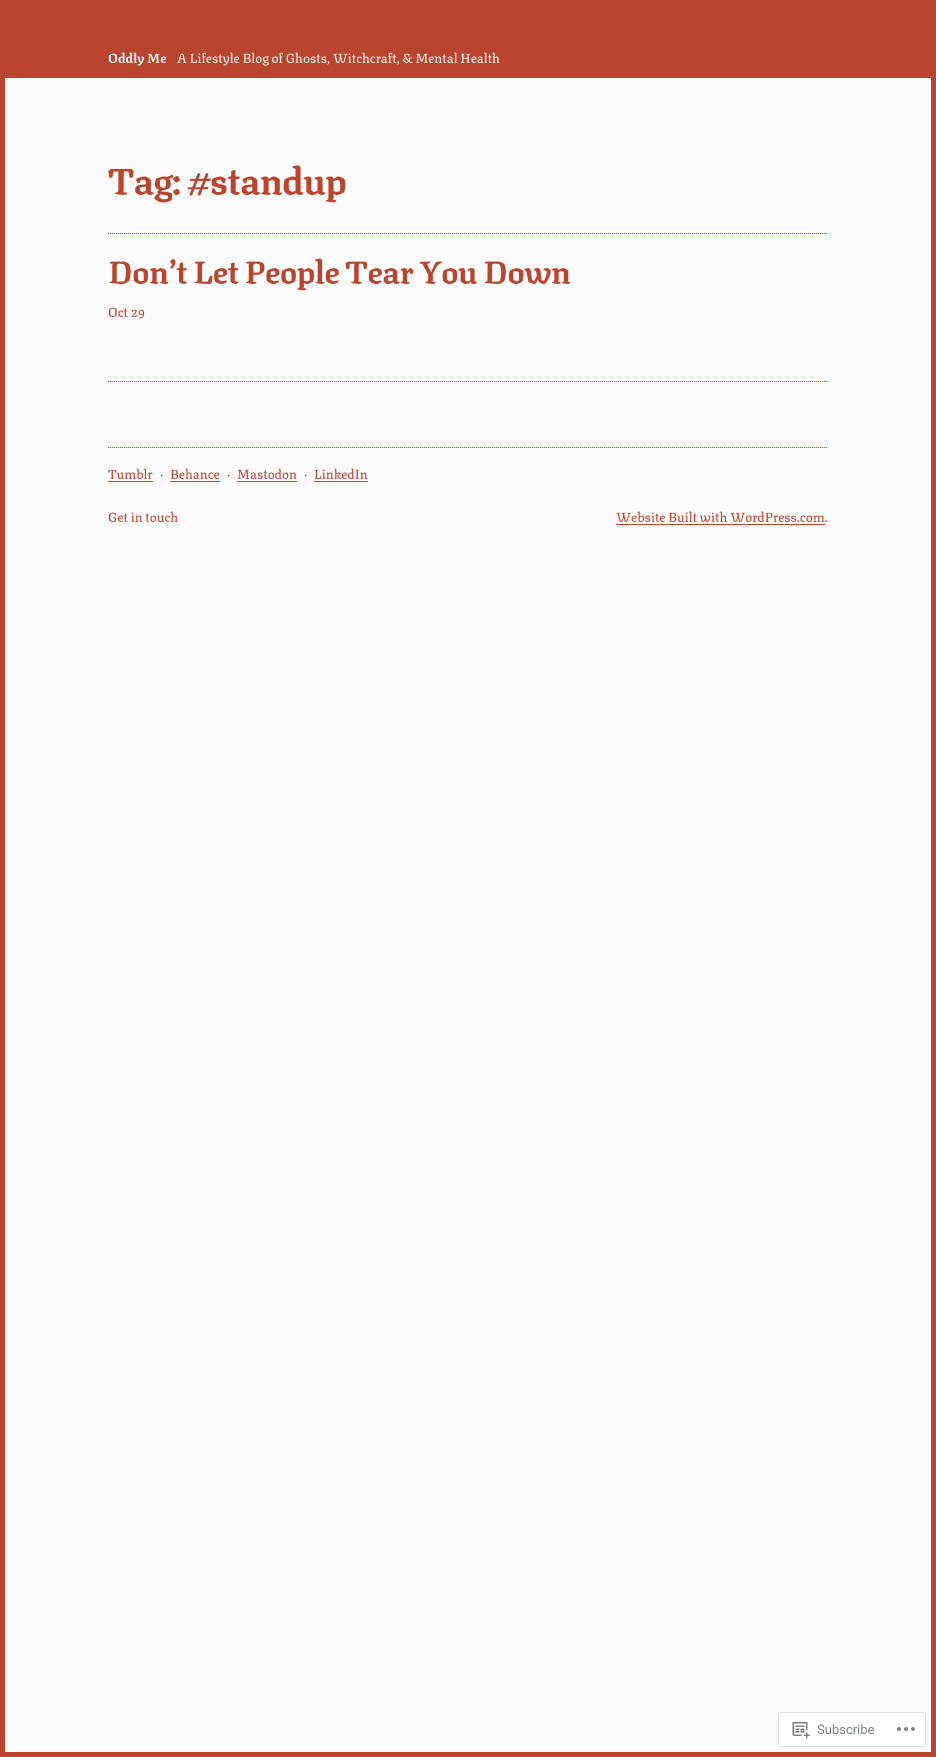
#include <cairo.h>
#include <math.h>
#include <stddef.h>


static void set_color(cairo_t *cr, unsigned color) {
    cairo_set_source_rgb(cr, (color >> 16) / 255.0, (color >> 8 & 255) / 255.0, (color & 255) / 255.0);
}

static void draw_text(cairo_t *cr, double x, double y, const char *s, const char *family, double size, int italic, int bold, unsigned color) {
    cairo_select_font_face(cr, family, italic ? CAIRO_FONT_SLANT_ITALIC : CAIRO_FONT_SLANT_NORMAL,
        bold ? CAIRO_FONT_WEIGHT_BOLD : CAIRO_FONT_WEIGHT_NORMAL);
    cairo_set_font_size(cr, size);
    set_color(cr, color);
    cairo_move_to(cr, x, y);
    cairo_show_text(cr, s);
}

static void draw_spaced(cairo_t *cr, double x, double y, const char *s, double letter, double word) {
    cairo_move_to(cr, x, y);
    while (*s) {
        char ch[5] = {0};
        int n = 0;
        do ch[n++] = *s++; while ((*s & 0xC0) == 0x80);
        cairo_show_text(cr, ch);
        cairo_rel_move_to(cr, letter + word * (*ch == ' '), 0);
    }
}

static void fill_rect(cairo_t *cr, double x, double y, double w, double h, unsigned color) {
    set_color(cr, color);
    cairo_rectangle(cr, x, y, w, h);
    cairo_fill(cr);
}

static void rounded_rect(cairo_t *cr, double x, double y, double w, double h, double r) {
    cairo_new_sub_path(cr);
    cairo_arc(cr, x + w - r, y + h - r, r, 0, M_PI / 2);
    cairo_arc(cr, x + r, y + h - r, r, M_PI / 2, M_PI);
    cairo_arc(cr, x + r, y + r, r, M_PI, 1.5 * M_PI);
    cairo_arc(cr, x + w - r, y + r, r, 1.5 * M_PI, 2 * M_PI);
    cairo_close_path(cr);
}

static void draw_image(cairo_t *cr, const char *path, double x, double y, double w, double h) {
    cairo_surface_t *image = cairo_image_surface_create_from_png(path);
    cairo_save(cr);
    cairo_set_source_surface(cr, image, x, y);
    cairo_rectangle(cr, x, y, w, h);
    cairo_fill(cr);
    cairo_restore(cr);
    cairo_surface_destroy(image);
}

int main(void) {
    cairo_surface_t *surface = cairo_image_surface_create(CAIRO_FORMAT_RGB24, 936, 1757);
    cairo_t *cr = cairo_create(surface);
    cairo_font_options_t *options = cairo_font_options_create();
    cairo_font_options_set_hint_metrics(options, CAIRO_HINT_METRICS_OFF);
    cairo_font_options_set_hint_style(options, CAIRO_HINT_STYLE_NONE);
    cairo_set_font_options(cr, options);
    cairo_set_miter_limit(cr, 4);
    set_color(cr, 0xFAFAFA);
    cairo_paint(cr);
    fill_rect(cr, 931, 0, 5, 1757, 0xBA452E);
    fill_rect(cr, 0, 1752, 936, 5, 0xBA452E);
    fill_rect(cr, 0, 0, 5, 1757, 0xBA452E);
    fill_rect(cr, 5, 0, 926, 78, 0xBA452E);
    draw_text(cr, 108, 63, "Oddly Me", "Texturina", 13, 0, 1, 0xFAFAFA);
    draw_text(cr, 177, 63, "A Lifestyle Blog of Ghosts, Witchcraft, & Mental Health", "Texturina", 13, 0, 0, 0xFAFAFA);
    cairo_select_font_face(cr, "Texturina", CAIRO_FONT_SLANT_NORMAL, CAIRO_FONT_WEIGHT_BOLD);
    cairo_set_font_size(cr, 37);
    set_color(cr, 0xBA452E);
    draw_spaced(cr, 108, 195, "Tag: #standup", -0.6, 0);
    cairo_new_path(cr);
    cairo_move_to(cr, 108, 233.5);
    cairo_line_to(cr, 828, 233.5);
    cairo_set_line_width(cr, 1);
    cairo_set_dash(cr, (double[]){1, 1}, 2, 0);
    cairo_stroke(cr);
    cairo_set_font_size(cr, 31.8);
    draw_spaced(cr, 108, 284, "Don’t Let People Tear You Down", -0.3, 0);
    draw_text(cr, 108, 317, "Oct 29", "Texturina", 13, 0, 0, 0xBA452E);
    cairo_new_path(cr);
    cairo_move_to(cr, 108, 381.5);
    cairo_line_to(cr, 828, 381.5);
    cairo_stroke(cr);
    cairo_new_path(cr);
    cairo_move_to(cr, 108, 447.5);
    cairo_line_to(cr, 828, 447.5);
    cairo_stroke(cr);
    draw_text(cr, 108, 479, "Tumblr", "Texturina", 13, 0, 0, 0xBA452E);
    fill_rect(cr, 108, 481, 45, 1, 0xBA452E);
    draw_text(cr, 160, 479, "·", "Texturina", 13, 0, 0, 0xBA452E);
    draw_text(cr, 170, 479, "Behance", "Texturina", 13, 0, 0, 0xBA452E);
    fill_rect(cr, 170, 481, 50, 1, 0xBA452E);
    draw_text(cr, 227, 479, "·", "Texturina", 13, 0, 0, 0xBA452E);
    draw_text(cr, 237, 479, "Mastodon", "Texturina", 13, 0, 0, 0xBA452E);
    fill_rect(cr, 237, 481, 60, 1, 0xBA452E);
    draw_text(cr, 304, 479, "·", "Texturina", 13, 0, 0, 0xBA452E);
    draw_text(cr, 314, 479, "LinkedIn", "Texturina", 13, 0, 0, 0xBA452E);
    fill_rect(cr, 314, 481, 54, 1, 0xBA452E);
    draw_text(cr, 108, 522, "Get in touch", "Texturina", 13, 0, 0, 0xBA452E);
    draw_text(cr, 616, 522, "Website Built with WordPress.com.", "Texturina", 13, 0, 0, 0xBA452E);
    fill_rect(cr, 616, 524, 209, 1, 0xBA452E);
    set_color(cr, 0xFFFFFF);
    rounded_rect(cr, 778.5, 1712.5, 147, 34, 2.5);
    cairo_fill_preserve(cr);
    set_color(cr, 0xDDDDDF);
    cairo_set_dash(cr, NULL, 0, 0);
    cairo_stroke(cr);
    draw_image(cr, "assets/img1.png", 792, 1722, 18, 17);
    draw_text(cr, 817, 1734, "Subscribe", "Roboto", 13, 0, 0, 0x7B7F84);
    draw_image(cr, "assets/img2.png", 897, 1727, 18, 4);
    cairo_surface_write_to_png(surface, "output.png");
    cairo_font_options_destroy(options);
    cairo_destroy(cr);
    cairo_surface_destroy(surface);
    return 0;
}
